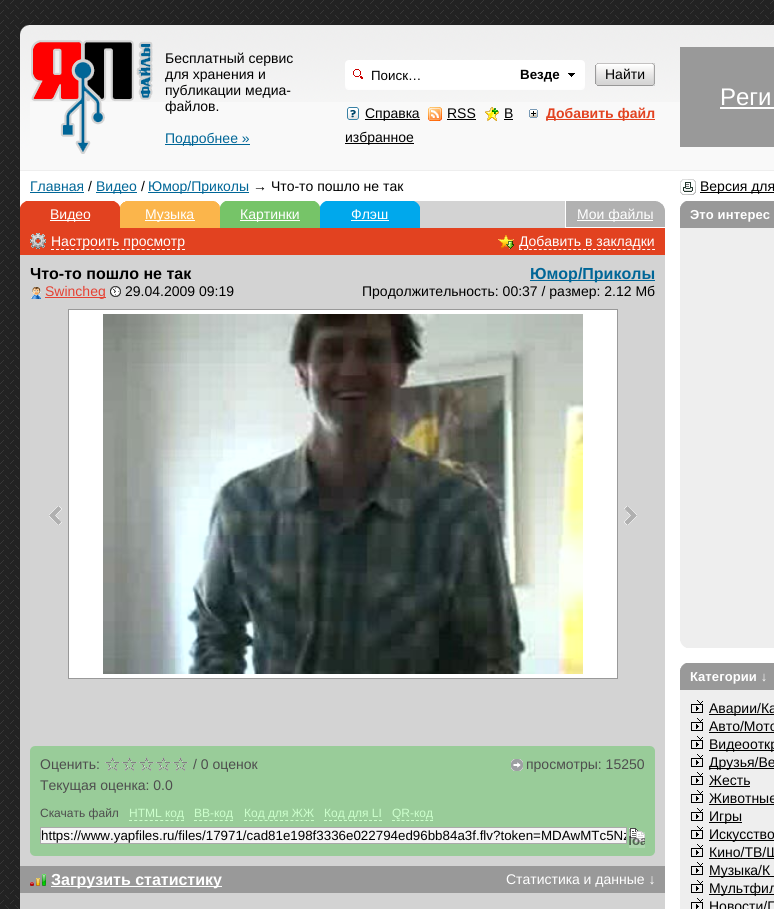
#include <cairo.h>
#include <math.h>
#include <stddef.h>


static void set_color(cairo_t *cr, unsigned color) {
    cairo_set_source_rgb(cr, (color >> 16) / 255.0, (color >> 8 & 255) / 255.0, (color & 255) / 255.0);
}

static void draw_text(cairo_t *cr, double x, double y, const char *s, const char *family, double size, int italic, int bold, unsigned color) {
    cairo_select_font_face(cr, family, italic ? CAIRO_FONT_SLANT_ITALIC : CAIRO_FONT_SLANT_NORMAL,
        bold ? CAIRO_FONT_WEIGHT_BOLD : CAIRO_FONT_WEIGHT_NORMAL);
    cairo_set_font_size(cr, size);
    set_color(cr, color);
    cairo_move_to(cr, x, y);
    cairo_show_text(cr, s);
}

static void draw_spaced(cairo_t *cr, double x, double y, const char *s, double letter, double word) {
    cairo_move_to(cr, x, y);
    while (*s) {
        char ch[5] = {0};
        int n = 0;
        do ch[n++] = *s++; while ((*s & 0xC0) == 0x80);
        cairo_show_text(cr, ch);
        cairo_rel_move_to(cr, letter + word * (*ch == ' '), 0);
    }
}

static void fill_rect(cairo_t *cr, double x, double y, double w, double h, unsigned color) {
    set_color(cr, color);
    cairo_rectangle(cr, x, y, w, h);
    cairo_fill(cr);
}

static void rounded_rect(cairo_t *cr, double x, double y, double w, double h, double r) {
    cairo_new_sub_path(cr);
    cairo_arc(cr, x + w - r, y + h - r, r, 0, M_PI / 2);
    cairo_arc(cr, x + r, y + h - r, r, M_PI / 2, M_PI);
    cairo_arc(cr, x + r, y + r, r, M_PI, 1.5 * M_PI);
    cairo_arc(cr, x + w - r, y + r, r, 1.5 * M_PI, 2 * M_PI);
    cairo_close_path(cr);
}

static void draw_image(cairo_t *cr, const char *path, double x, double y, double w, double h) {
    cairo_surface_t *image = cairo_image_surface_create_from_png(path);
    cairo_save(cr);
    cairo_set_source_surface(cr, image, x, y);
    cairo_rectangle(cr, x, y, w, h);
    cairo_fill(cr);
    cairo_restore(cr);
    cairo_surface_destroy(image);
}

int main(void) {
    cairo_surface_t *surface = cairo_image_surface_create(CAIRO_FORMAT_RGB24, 774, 909);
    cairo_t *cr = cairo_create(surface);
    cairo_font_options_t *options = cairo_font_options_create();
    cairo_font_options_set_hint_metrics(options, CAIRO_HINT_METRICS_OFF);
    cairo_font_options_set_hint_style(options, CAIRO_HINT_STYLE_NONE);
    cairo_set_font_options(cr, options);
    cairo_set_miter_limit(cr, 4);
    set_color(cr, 0x222222);
    cairo_paint(cr);
    draw_image(cr, "assets/img1.png", 0, 0, 774, 909);
    draw_image(cr, "assets/img2.png", 20, 25, 10, 145);
    fill_rect(cr, 30, 102, 744, 68, 0xF9F9F9);
    draw_image(cr, "assets/img3.png", 30, 25, 744, 77);
    draw_image(cr, "assets/img4.png", 31, 40, 122, 114);
    draw_text(cr, 165, 63, "Бесплатный сервис", "Liberation Sans", 14, 0, 0, 0x000000);
    draw_text(cr, 165, 79, "для хранения и", "Liberation Sans", 14, 0, 0, 0x000000);
    draw_text(cr, 165, 95, "публикации медиа-", "Liberation Sans", 14, 0, 0, 0x000000);
    draw_text(cr, 165, 111, "файлов.", "Liberation Sans", 14, 0, 0, 0x000000);
    fill_rect(cr, 165, 144, 85, 1, 0x006697);
    draw_text(cr, 165, 143, "Подробнее »", "Liberation Sans", 14, 0, 0, 0x006697);
    set_color(cr, 0xFEFEFE);
    cairo_new_path(cr);
    cairo_move_to(cr, 345, 85);
    cairo_curve_to(cr, 345, 88, 346, 90, 349, 90);
    cairo_line_to(cr, 581, 90);
    cairo_curve_to(cr, 584, 90, 585, 88, 585, 85);
    cairo_curve_to(cr, 585, 87, 583, 89, 581, 89);
    cairo_line_to(cr, 349, 89);
    cairo_curve_to(cr, 347, 89, 345, 87, 345, 85);
    cairo_close_path(cr);
    cairo_fill(cr);
    set_color(cr, 0xFFFFFF);
    rounded_rect(cr, 345, 60, 240, 29, 4);
    cairo_fill(cr);
    draw_image(cr, "assets/img5.png", 353, 69, 10, 10);
    draw_text(cr, 371, 80, "Поиск…", "Liberation Sans", 13.35, 0, 0, 0x000000);
    draw_image(cr, "assets/img6.png", 568, 73, 7, 4);
    draw_text(cr, 520, 79, "Везде", "Liberation Sans", 13.35, 0, 1, 0x000000);
    draw_image(cr, "assets/img7.png", 595, 63, 10, 23);
    fill_rect(cr, 653, 63, 2, 23, 0xD3D3D3);
    draw_image(cr, "assets/img8.png", 605, 63, 50, 23);
    draw_text(cr, 605, 79, "Найти", "Liberation Sans", 14, 0, 0, 0x000000);
    draw_image(cr, "assets/img9.png", 347, 107, 12, 13);
    fill_rect(cr, 365, 119, 55, 1, 0x000000);
    draw_text(cr, 365, 118, "Справка", "Liberation Sans", 14, 0, 0, 0x000000);
    draw_image(cr, "assets/img10.png", 428, 107, 14, 14);
    draw_text(cr, 447, 118, "RSS", "Liberation Sans", 14, 0, 0, 0x000000);
    fill_rect(cr, 447, 119, 29, 1, 0x000000);
    draw_image(cr, "assets/img11.png", 485, 107, 14, 14);
    draw_text(cr, 504, 118, "В", "Liberation Sans", 14, 0, 0, 0x000000);
    fill_rect(cr, 504, 119, 9, 1, 0x000000);
    fill_rect(cr, 345, 143, 69, 1, 0x000000);
    draw_text(cr, 345, 142, "избранное", "Liberation Sans", 14, 0, 0, 0x000000);
    draw_image(cr, "assets/img12.png", 529, 109, 9, 9);
    fill_rect(cr, 546, 119, 109, 1, 0xE24220);
    draw_text(cr, 546, 118, "Добавить файл", "Liberation Sans", 14, 0, 1, 0xE24220);
    fill_rect(cr, 680, 47, 94, 100, 0x999999);
    draw_text(cr, 720, 105, "Реги", "Liberation Sans", 24, 0, 0, 0xFFFFFF);
    fill_rect(cr, 720, 107, 54, 2, 0xFFFFFF);
    fill_rect(cr, 20, 171, 754, 30, 0xFFFFFF);
    fill_rect(cr, 20, 170, 754, 1, 0xEEEEEE);
    draw_text(cr, 30, 191, "Главная", "Liberation Sans", 14, 0, 0, 0x006697);
    fill_rect(cr, 30, 192, 54, 1, 0x006697);
    draw_text(cr, 88, 191, "/", "Liberation Sans", 14, 0, 0, 0x000000);
    fill_rect(cr, 96, 192, 41, 1, 0x006697);
    draw_text(cr, 96, 191, "Видео", "Liberation Sans", 14, 0, 0, 0x006697);
    draw_text(cr, 141, 191, "/", "Liberation Sans", 14, 0, 0, 0x000000);
    fill_rect(cr, 148, 192, 101, 1, 0x006697);
    draw_text(cr, 148, 191, "Юмор/Приколы", "Liberation Sans", 14, 0, 0, 0x006697);
    draw_text(cr, 253, 191, "→ Что-то пошло не так", "Liberation Sans", 14, 0, 0, 0x000000);
    draw_image(cr, "assets/img13.png", 680, 179, 16, 16);
    fill_rect(cr, 700, 192, 74, 1, 0x000000);
    draw_text(cr, 700, 191, "Версия для", "Liberation Sans", 14, 0, 0, 0x000000);
    fill_rect(cr, 665, 201, 109, 708, 0xFFFFFF);
    fill_rect(cr, 420, 201, 145, 27, 0xD3D3D3);
    draw_image(cr, "assets/img14.png", 658, 201, 7, 7);
    fill_rect(cr, 20, 201, 200, 4, 0xFFFFFF);
    draw_image(cr, "assets/img15.png", 20, 201, 100, 27);
    fill_rect(cr, 50, 220, 40, 1, 0xFFFFFF);
    draw_text(cr, 50, 219, "Видео", "Liberation Sans", 14, 0, 0, 0xFFFFFF);
    draw_image(cr, "assets/img16.png", 120, 201, 100, 27);
    fill_rect(cr, 145, 220, 50, 1, 0xFFFFFF);
    draw_text(cr, 145, 219, "Музыка", "Liberation Sans", 14, 0, 0, 0xFFFFFF);
    fill_rect(cr, 220, 201, 104, 3, 0xFFFFFF);
    draw_image(cr, "assets/img17.png", 220, 201, 100, 27);
    fill_rect(cr, 240, 220, 60, 1, 0xFFFFFF);
    draw_text(cr, 240, 219, "Картинки", "Liberation Sans", 14, 0, 0, 0xFFFFFF);
    draw_image(cr, "assets/img18.png", 320, 201, 100, 27);
    draw_text(cr, 351, 219, "Флэш", "Liberation Sans", 14, 0, 0, 0xFFFFFF);
    fill_rect(cr, 351, 220, 38, 1, 0xFFFFFF);
    draw_image(cr, "assets/img19.png", 565, 201, 100, 27);
    fill_rect(cr, 577, 220, 76, 1, 0xFFFFFF);
    draw_text(cr, 577, 219, "Мои файлы", "Liberation Sans", 14, 0, 0, 0xFFFFFF);
    fill_rect(cr, 20, 255, 645, 654, 0xD3D3D3);
    fill_rect(cr, 20, 228, 645, 27, 0xE24220);
    draw_image(cr, "assets/img20.png", 30, 233, 16, 16);
    draw_text(cr, 51, 246, "Настроить просмотр", "Liberation Sans", 14, 0, 0, 0xFFFFFF);
    cairo_new_path(cr);
    cairo_move_to(cr, 51, 249.5);
    cairo_line_to(cr, 185, 249.5);
    cairo_set_line_width(cr, 1);
    cairo_set_dash(cr, (double[]){3, 2.04}, 2, 0);
    cairo_stroke(cr);
    draw_image(cr, "assets/img21.png", 498, 235, 16, 14);
    draw_text(cr, 519, 246, "Добавить в закладки", "Liberation Sans", 14, 0, 0, 0xFFFFFF);
    cairo_new_path(cr);
    cairo_move_to(cr, 519, 249.5);
    cairo_line_to(cr, 655, 249.5);
    cairo_set_dash(cr, (double[]){3, 1.93}, 2, 0);
    cairo_stroke(cr);
    draw_text(cr, 30, 279, "Что-то пошло не так", "Liberation Sans", 16, 0, 1, 0x000000);
    draw_image(cr, "assets/img22.png", 31, 287, 10, 12);
    fill_rect(cr, 45, 297, 61, 1, 0xE64133);
    draw_text(cr, 45, 296, "Swincheg", "Liberation Sans", 14, 0, 0, 0xE64133);
    draw_image(cr, "assets/img23.png", 110, 286, 11, 11);
    draw_text(cr, 125, 296, "29.04.2009 09:19", "Liberation Sans", 14, 0, 0, 0x000000);
    fill_rect(cr, 530, 280, 125, 1, 0x006697);
    draw_text(cr, 530, 279, "Юмор/Приколы", "Liberation Sans", 16, 0, 1, 0x006697);
    draw_text(cr, 362, 296, "Продолжительность: 00:37 / размер: 2.12 Мб", "Liberation Sans", 14, 0, 0, 0x000000);
    draw_image(cr, "assets/img24.png", 49, 506, 13, 19);
    set_color(cr, 0xFFFFFF);
    cairo_rectangle(cr, 68.5, 309.5, 549, 369);
    cairo_fill_preserve(cr);
    set_color(cr, 0x999999);
    cairo_set_dash(cr, NULL, 0, 0);
    cairo_stroke(cr);
    draw_image(cr, "assets/img25.png", 103, 314, 480, 360);
    draw_image(cr, "assets/img26.png", 624, 506, 13, 19);
    fill_rect(cr, 30, 746, 625, 110, 0x99CC99);
    draw_image(cr, "assets/img27.png", 30, 746, 5, 110);
    draw_image(cr, "assets/img28.png", 650, 746, 5, 110);
    draw_text(cr, 40, 769, "Оценить:", "Liberation Sans", 14, 0, 0, 0x4E4E4E);
    draw_image(cr, "assets/img29.png", 105, 757, 83, 14);
    draw_text(cr, 193, 769, "/ 0 оценок", "Liberation Sans", 14, 0, 0, 0x4E4E4E);
    draw_text(cr, 40, 790, "Текущая оценка: 0.0", "Liberation Sans", 14, 0, 0, 0x4E4E4E);
    draw_image(cr, "assets/img30.png", 511, 759, 12, 12);
    draw_text(cr, 526, 769, "просмотры: 15250", "Liberation Sans", 14, 0, 0, 0x4E4E4E);
    draw_text(cr, 40, 817, "Скачать файл", "Liberation Sans", 12, 0, 0, 0x4E4E4E);
    draw_text(cr, 129, 817, "HTML код", "Liberation Sans", 12, 0, 0, 0xCCFFCC);
    cairo_new_path(cr);
    cairo_move_to(cr, 129, 820.5);
    cairo_line_to(cr, 184, 820.5);
    cairo_set_dash(cr, (double[]){3, 2.2}, 2, 0);
    cairo_stroke(cr);
    draw_text(cr, 194, 817, "BB-код", "Liberation Sans", 12, 0, 0, 0xCCFFCC);
    cairo_new_path(cr);
    cairo_move_to(cr, 194, 820.5);
    cairo_line_to(cr, 233, 820.5);
    cairo_set_dash(cr, (double[]){3, 2.14}, 2, 0);
    cairo_stroke(cr);
    draw_text(cr, 244, 817, "Код для ЖЖ", "Liberation Sans", 12, 0, 0, 0xCCFFCC);
    cairo_new_path(cr);
    cairo_move_to(cr, 244, 820.5);
    cairo_line_to(cr, 314, 820.5);
    cairo_set_dash(cr, (double[]){3, 2.15}, 2, 0);
    cairo_stroke(cr);
    draw_text(cr, 324, 817, "Код для LI", "Liberation Sans", 12, 0, 0, 0xCCFFCC);
    cairo_new_path(cr);
    cairo_move_to(cr, 324, 820.5);
    cairo_line_to(cr, 382, 820.5);
    cairo_set_dash(cr, (double[]){3, 2}, 2, 0);
    cairo_stroke(cr);
    draw_text(cr, 392, 817, "QR-код", "Liberation Sans", 12, 0, 0, 0xCCFFCC);
    cairo_new_path(cr);
    cairo_move_to(cr, 392, 820.5);
    cairo_line_to(cr, 433, 820.5);
    cairo_set_dash(cr, (double[]){3, 1.75}, 2, 0);
    cairo_stroke(cr);
    set_color(cr, 0xF5F5F5);
    cairo_rectangle(cr, 40.5, 827.5, 586, 16);
    cairo_fill_preserve(cr);
    set_color(cr, 0xAAAAAA);
    cairo_set_dash(cr, NULL, 0, 0);
    cairo_stroke(cr);
    cairo_save(cr);
    cairo_rectangle(cr, 41, 828, 585, 15);
    cairo_clip(cr);
    draw_text(cr, 41, 840, "https://www.yapfiles.ru/files/17971/cad81e198f3336e022794ed96bb84a3f.flv?token=MDAwMTc5Nz", "Liberation Sans", 13.35, 0, 0, 0x000000);
    cairo_restore(cr);
    draw_image(cr, "assets/img31.png", 629, 828, 16, 14);
    fill_rect(cr, 20, 866, 645, 27, 0x999999);
    draw_image(cr, "assets/img32.png", 30, 874, 16, 12);
    fill_rect(cr, 51, 886, 171, 1, 0xFFFFFF);
    draw_text(cr, 51, 885, "Загрузить статистику", "Liberation Sans", 16, 0, 1, 0xFFFFFF);
    draw_text(cr, 506, 884, "Статистика и данные ↓", "Liberation Sans", 14, 0, 0, 0xFFFFFF);
    fill_rect(cr, 680, 201, 94, 27, 0x999999);
    draw_image(cr, "assets/img33.png", 680, 201, 6, 7);
    cairo_select_font_face(cr, "Liberation Sans", CAIRO_FONT_SLANT_NORMAL, CAIRO_FONT_WEIGHT_BOLD);
    cairo_set_font_size(cr, 13);
    set_color(cr, 0xFFFFFF);
    draw_spaced(cr, 690, 219, "Это интерес", 0.1, 0);
    fill_rect(cr, 680, 228, 94, 420, 0xEEEEEE);
    draw_image(cr, "assets/img34.png", 680, 641, 6, 7);
    fill_rect(cr, 680, 663, 94, 27, 0x999999);
    draw_image(cr, "assets/img33.png", 680, 663, 6, 7);
    set_color(cr, 0xFFFFFF);
    draw_spaced(cr, 690, 681, "Категории ↓", 0.1, 0);
    fill_rect(cr, 680, 690, 94, 219, 0xEEEEEE);
    draw_image(cr, "assets/img35.png", 691, 700, 12, 13);
    fill_rect(cr, 709, 714, 65, 1, 0x000000);
    draw_text(cr, 709, 713, "Аварии/Ка", "Liberation Sans", 14, 0, 0, 0x000000);
    draw_image(cr, "assets/img35.png", 691, 718, 12, 13);
    draw_text(cr, 709, 731, "Авто/Мото", "Liberation Sans", 14, 0, 0, 0x000000);
    fill_rect(cr, 709, 732, 65, 1, 0x000000);
    draw_image(cr, "assets/img35.png", 691, 736, 12, 13);
    fill_rect(cr, 709, 750, 65, 1, 0x000000);
    draw_text(cr, 709, 749, "Видеооткр", "Liberation Sans", 14, 0, 0, 0x000000);
    draw_image(cr, "assets/img35.png", 691, 754, 12, 13);
    fill_rect(cr, 709, 768, 65, 1, 0x000000);
    draw_text(cr, 709, 767, "Друзья/Ве", "Liberation Sans", 14, 0, 0, 0x000000);
    draw_image(cr, "assets/img35.png", 691, 772, 12, 13);
    draw_text(cr, 709, 785, "Жесть", "Liberation Sans", 14, 0, 0, 0x000000);
    fill_rect(cr, 709, 786, 41, 1, 0x000000);
    draw_image(cr, "assets/img35.png", 691, 790, 12, 13);
    draw_text(cr, 709, 803, "Животные", "Liberation Sans", 14, 0, 0, 0x000000);
    fill_rect(cr, 709, 804, 65, 1, 0x000000);
    draw_image(cr, "assets/img35.png", 691, 808, 12, 13);
    fill_rect(cr, 709, 822, 33, 1, 0x000000);
    draw_text(cr, 709, 821, "Игры", "Liberation Sans", 14, 0, 0, 0x000000);
    draw_image(cr, "assets/img35.png", 691, 826, 12, 13);
    fill_rect(cr, 709, 840, 65, 1, 0x000000);
    draw_text(cr, 709, 839, "Искусство", "Liberation Sans", 14, 0, 0, 0x000000);
    draw_image(cr, "assets/img35.png", 691, 844, 12, 13);
    draw_text(cr, 709, 857, "Кино/ТВ/Ш", "Liberation Sans", 14, 0, 0, 0x000000);
    fill_rect(cr, 709, 858, 65, 1, 0x000000);
    draw_image(cr, "assets/img35.png", 691, 862, 12, 13);
    fill_rect(cr, 709, 876, 65, 1, 0x000000);
    draw_text(cr, 709, 875, "Музыка/К", "Liberation Sans", 14, 0, 0, 0x000000);
    draw_image(cr, "assets/img35.png", 691, 880, 12, 13);
    fill_rect(cr, 709, 894, 65, 1, 0x000000);
    draw_text(cr, 709, 893, "Мультфил", "Liberation Sans", 14, 0, 0, 0x000000);
    draw_image(cr, "assets/img36.png", 691, 898, 12, 11);
    draw_text(cr, 709, 911, "Новости/П", "Liberation Sans", 14, 0, 0, 0x000000);
    draw_image(cr, "assets/img37.png", 629, 832, 16, 16);
    cairo_surface_write_to_png(surface, "output.png");
    cairo_font_options_destroy(options);
    cairo_destroy(cr);
    cairo_surface_destroy(surface);
    return 0;
}
